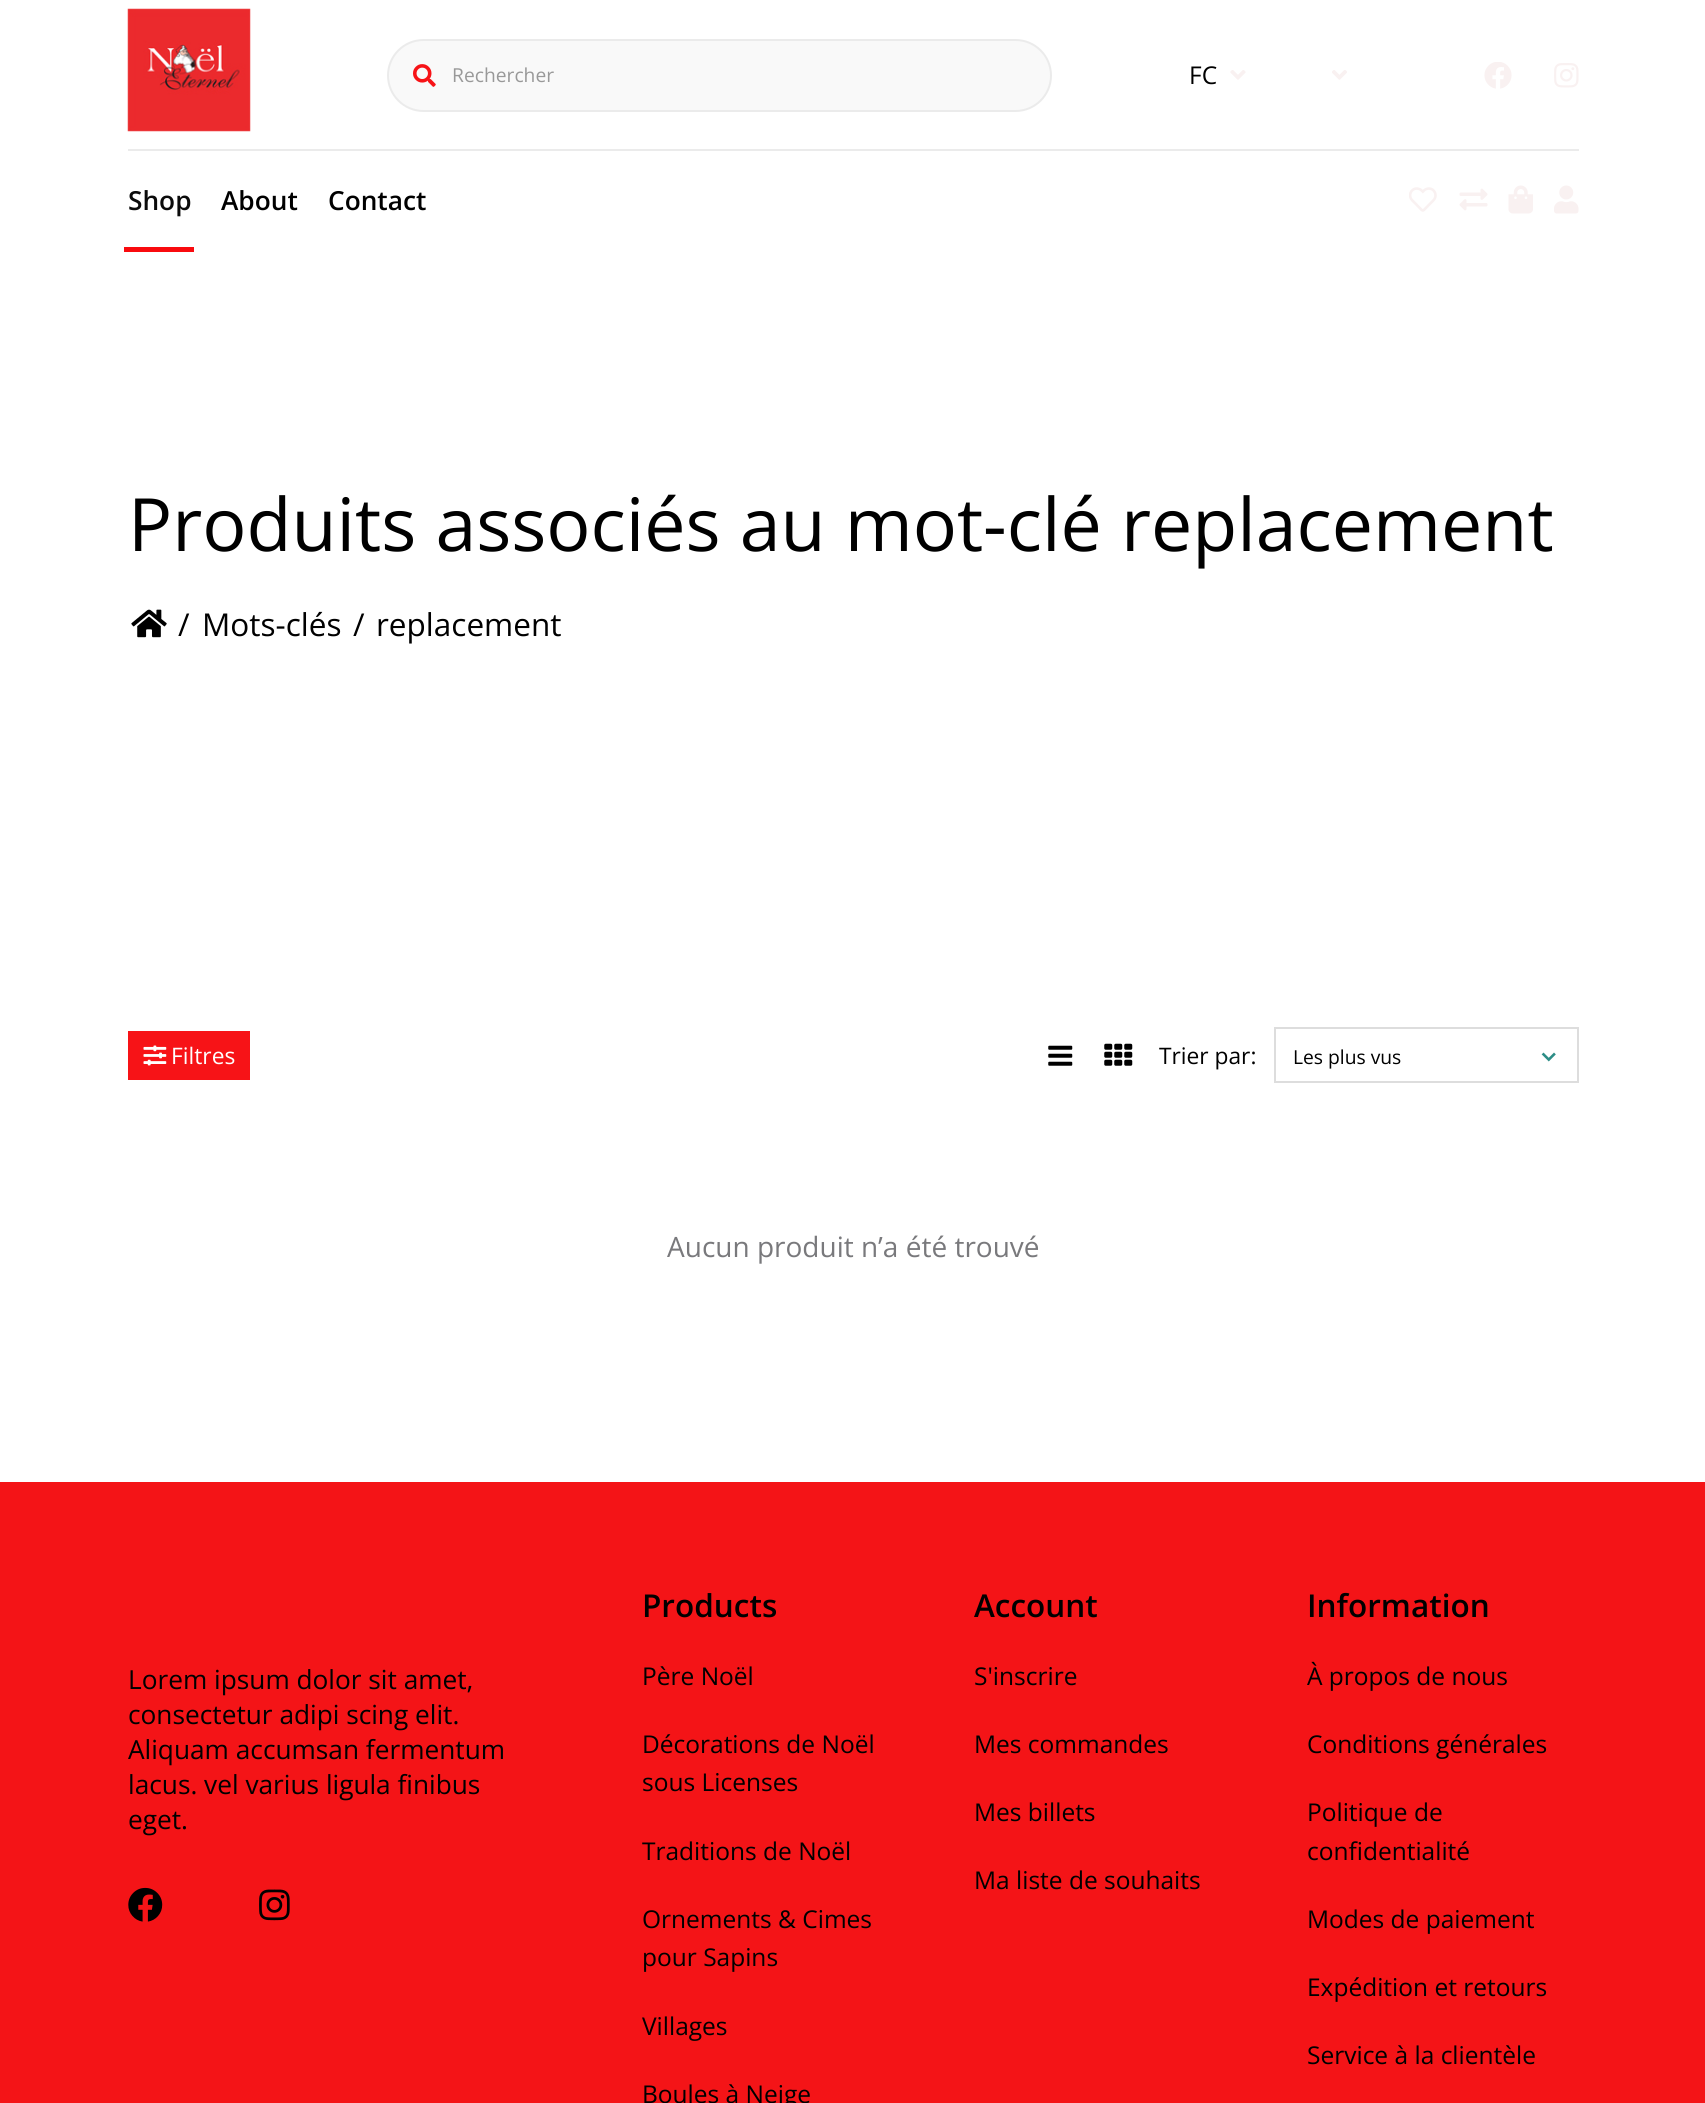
#include <cairo.h>
#include <math.h>
#include <stddef.h>


static void set_color(cairo_t *cr, unsigned color) {
    cairo_set_source_rgb(cr, (color >> 16) / 255.0, (color >> 8 & 255) / 255.0, (color & 255) / 255.0);
}

static void draw_text(cairo_t *cr, double x, double y, const char *s, const char *family, double size, int italic, int bold, unsigned color) {
    cairo_select_font_face(cr, family, italic ? CAIRO_FONT_SLANT_ITALIC : CAIRO_FONT_SLANT_NORMAL,
        bold ? CAIRO_FONT_WEIGHT_BOLD : CAIRO_FONT_WEIGHT_NORMAL);
    cairo_set_font_size(cr, size);
    set_color(cr, color);
    cairo_move_to(cr, x, y);
    cairo_show_text(cr, s);
}

static void fill_rect(cairo_t *cr, double x, double y, double w, double h, unsigned color) {
    set_color(cr, color);
    cairo_rectangle(cr, x, y, w, h);
    cairo_fill(cr);
}

static void rounded_rect(cairo_t *cr, double x, double y, double w, double h, double r) {
    cairo_new_sub_path(cr);
    cairo_arc(cr, x + w - r, y + h - r, r, 0, M_PI / 2);
    cairo_arc(cr, x + r, y + h - r, r, M_PI / 2, M_PI);
    cairo_arc(cr, x + r, y + r, r, M_PI, 1.5 * M_PI);
    cairo_arc(cr, x + w - r, y + r, r, 1.5 * M_PI, 2 * M_PI);
    cairo_close_path(cr);
}

static void draw_image(cairo_t *cr, const char *path, double x, double y, double w, double h) {
    cairo_surface_t *image = cairo_image_surface_create_from_png(path);
    cairo_save(cr);
    cairo_set_source_surface(cr, image, x, y);
    cairo_rectangle(cr, x, y, w, h);
    cairo_fill(cr);
    cairo_restore(cr);
    cairo_surface_destroy(image);
}

int main(void) {
    cairo_surface_t *surface = cairo_image_surface_create(CAIRO_FORMAT_RGB24, 1705, 2103);
    cairo_t *cr = cairo_create(surface);
    cairo_font_options_t *options = cairo_font_options_create();
    cairo_font_options_set_hint_metrics(options, CAIRO_HINT_METRICS_OFF);
    cairo_font_options_set_hint_style(options, CAIRO_HINT_STYLE_NONE);
    cairo_set_font_options(cr, options);
    cairo_set_miter_limit(cr, 4);
    set_color(cr, 0xFFFFFF);
    cairo_paint(cr);
    fill_rect(cr, 128, 149, 1451, 2, 0xEBEBEB);
    draw_image(cr, "assets/img1.png", 127, 8, 124, 124);
    set_color(cr, 0xF9F9F9);
    rounded_rect(cr, 388, 40, 663, 71, 35.5);
    cairo_fill_preserve(cr);
    set_color(cr, 0xEBEBEB);
    cairo_stroke(cr);
    draw_image(cr, "assets/img2.png", 413, 64, 23, 23);
    draw_text(cr, 452, 82, "Rechercher", "Open Sans", 19.25, 0, 0, 0x999999);
    draw_text(cr, 1189, 84, "FC", "Open Sans", 24.5, 0, 0, 0x000000);
    draw_image(cr, "assets/img3.png", 1230, 70, 16, 10);
    draw_image(cr, "assets/img4.png", 1332, 70, 15, 10);
    draw_image(cr, "assets/img5.png", 1484, 62, 28, 27);
    draw_image(cr, "assets/img6.png", 1554, 63, 25, 25);
    draw_text(cr, 128, 210, "Shop", "Open Sans SemiBold", 26.25, 0, 0, 0x0B0B0B);
    fill_rect(cr, 124, 247, 70, 5, 0xF90B0F);
    draw_text(cr, 221, 210, "About", "Open Sans SemiBold", 26.25, 0, 0, 0x000000);
    draw_text(cr, 328, 210, "Contact", "Open Sans SemiBold", 26.25, 0, 0, 0x000000);
    draw_image(cr, "assets/img7.png", 1409, 187, 28, 25);
    draw_image(cr, "assets/img8.png", 1459, 188, 29, 23);
    draw_image(cr, "assets/img9.png", 1508, 185, 25, 29);
    draw_image(cr, "assets/img10.png", 1554, 185, 25, 29);
    draw_text(cr, 128, 551, "Produits associés au mot-clé replacement", "Open Sans", 73.5, 0, 0, 0x000000);
    draw_image(cr, "assets/img11.png", 131, 609, 36, 29);
    draw_text(cr, 178, 636, "/", "Open Sans", 31.5, 0, 0, 0x000000);
    draw_text(cr, 202, 636, "Mots-clés", "Open Sans", 31.5, 0, 0, 0x000000);
    draw_text(cr, 353, 636, "/", "Open Sans", 31.5, 0, 0, 0x000000);
    draw_text(cr, 376, 636, "replacement", "Open Sans", 31.5, 0, 0, 0x000000);
    fill_rect(cr, 128, 1031, 122, 49, 0xF71317);
    draw_image(cr, "assets/img12.png", 143, 1045, 24, 21);
    draw_text(cr, 171, 1064, "Filtres", "Open Sans", 22.75, 0, 0, 0xFFFFFF);
    draw_image(cr, "assets/img13.png", 1048, 1045, 25, 21);
    draw_image(cr, "assets/img14.png", 1104, 1043, 29, 23);
    draw_text(cr, 1159, 1064, "Trier par:", "Open Sans", 22.75, 0, 0, 0x000000);
    cairo_rectangle(cr, 1275, 1028, 303, 54);
    set_color(cr, 0xDDDDDD);
    cairo_stroke(cr);
    draw_text(cr, 1293, 1064, "Les plus vus", "Open Sans", 19.25, 0, 0, 0x000000);
    draw_image(cr, "assets/img15.png", 1541, 1052, 15, 10);
    draw_text(cr, 667, 1257, "Aucun produit n’a été trouvé", "Open Sans", 28, 0, 0, 0x79797C);
    fill_rect(cr, 0, 1482, 1705, 621, 0xF41417);
    draw_text(cr, 128, 1689, "Lorem ipsum dolor sit amet,", "Open Sans", 26.25, 0, 0, 0x000000);
    draw_text(cr, 128, 1724, "consectetur adipi scing elit.", "Open Sans", 26.25, 0, 0, 0x000000);
    draw_text(cr, 128, 1759, "Aliquam accumsan fermentum", "Open Sans", 26.25, 0, 0, 0x000000);
    draw_text(cr, 128, 1794, "lacus. vel varius ligula finibus", "Open Sans", 26.25, 0, 0, 0x000000);
    draw_text(cr, 128, 1829, "eget.", "Open Sans", 26.25, 0, 0, 0x000000);
    draw_image(cr, "assets/img16.png", 128, 1887, 35, 35);
    draw_image(cr, "assets/img17.png", 259, 1889, 31, 32);
    draw_text(cr, 642, 1617, "Products", "Open Sans SemiBold", 31.5, 0, 0, 0x000000);
    draw_text(cr, 642, 1685, "Père Noël", "Open Sans", 24.5, 0, 0, 0x000000);
    draw_text(cr, 642, 1753, "Décorations de Noël", "Open Sans", 24.5, 0, 0, 0x000000);
    draw_text(cr, 642, 1791, "sous Licenses", "Open Sans", 24.5, 0, 0, 0x000000);
    draw_text(cr, 642, 1860, "Traditions de Noël", "Open Sans", 24.5, 0, 0, 0x000000);
    draw_text(cr, 642, 1928, "Ornements & Cimes", "Open Sans", 24.5, 0, 0, 0x000000);
    draw_text(cr, 642, 1966, "pour Sapins", "Open Sans", 24.5, 0, 0, 0x000000);
    draw_text(cr, 642, 2035, "Villages", "Open Sans", 24.5, 0, 0, 0x000000);
    draw_text(cr, 642, 2103, "Boules à Neige", "Open Sans", 24.5, 0, 0, 0x000000);
    draw_text(cr, 974, 1617, "Account", "Open Sans SemiBold", 31.5, 0, 0, 0x000000);
    draw_text(cr, 974, 1685, "S'inscrire", "Open Sans", 24.5, 0, 0, 0x000000);
    draw_text(cr, 974, 1753, "Mes commandes", "Open Sans", 24.5, 0, 0, 0x000000);
    draw_text(cr, 974, 1821, "Mes billets", "Open Sans", 24.5, 0, 0, 0x000000);
    draw_text(cr, 974, 1889, "Ma liste de souhaits", "Open Sans", 24.5, 0, 0, 0x000000);
    draw_text(cr, 1307, 1617, "Information", "Open Sans SemiBold", 31.5, 0, 0, 0x000000);
    draw_text(cr, 1307, 1685, "À propos de nous", "Open Sans", 24.5, 0, 0, 0x000000);
    draw_text(cr, 1307, 1753, "Conditions générales", "Open Sans", 24.5, 0, 0, 0x000000);
    draw_text(cr, 1307, 1821, "Politique de", "Open Sans", 24.5, 0, 0, 0x000000);
    draw_text(cr, 1307, 1860, "confidentialité", "Open Sans", 24.5, 0, 0, 0x000000);
    draw_text(cr, 1307, 1928, "Modes de paiement", "Open Sans", 24.5, 0, 0, 0x000000);
    draw_text(cr, 1307, 1996, "Expédition et retours", "Open Sans", 24.5, 0, 0, 0x000000);
    draw_text(cr, 1307, 2064, "Service à la clientèle", "Open Sans", 24.5, 0, 0, 0x000000);
    cairo_surface_write_to_png(surface, "output.png");
    cairo_font_options_destroy(options);
    cairo_destroy(cr);
    cairo_surface_destroy(surface);
    return 0;
}
